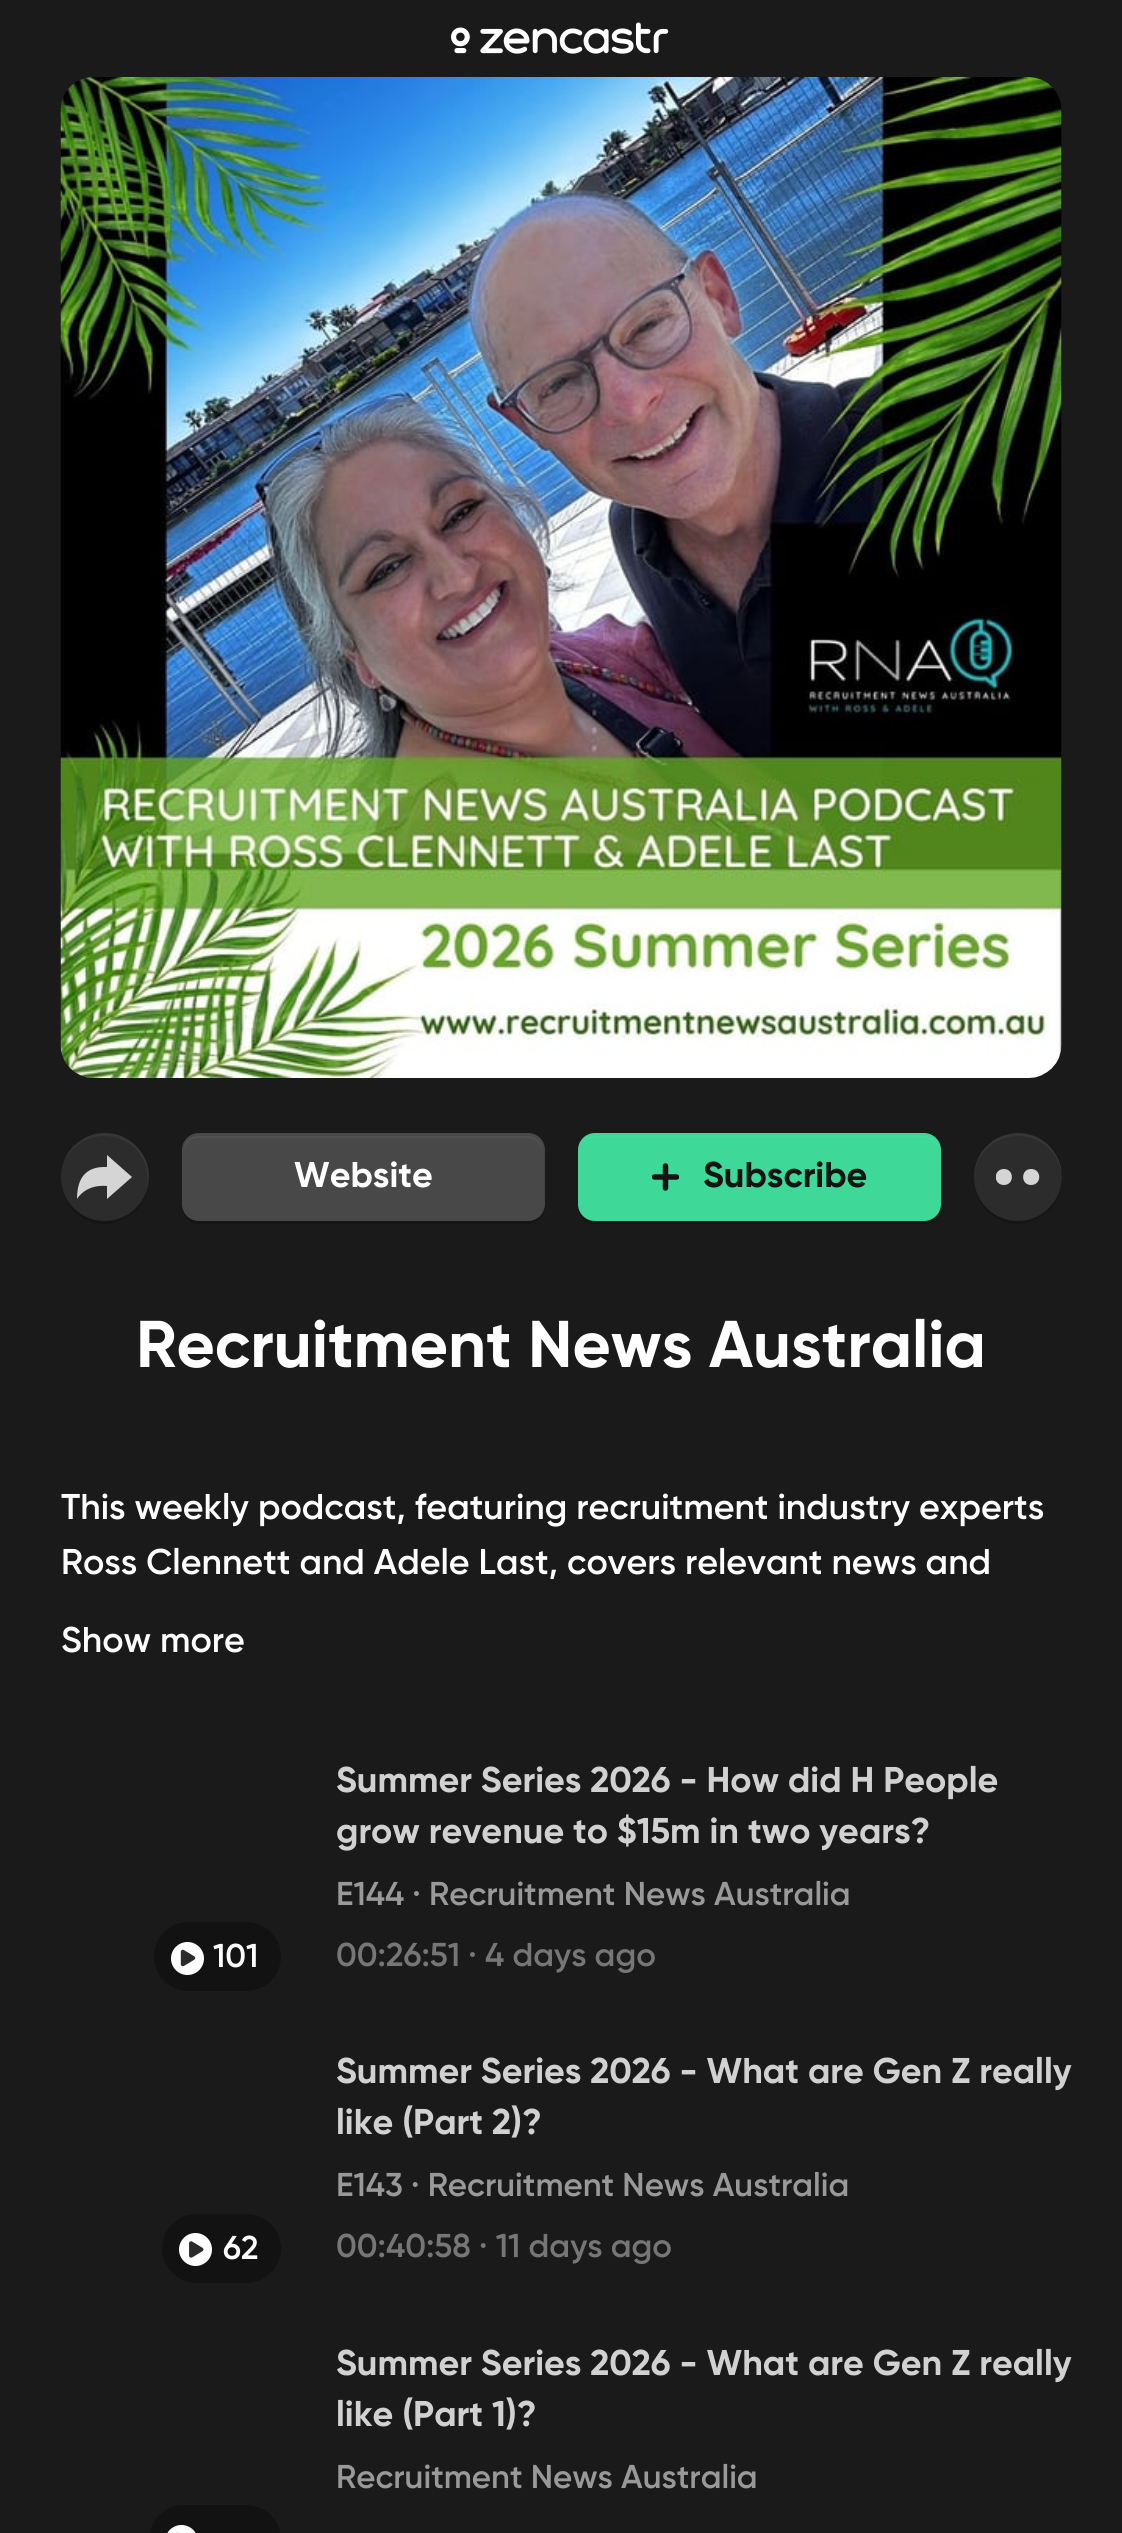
#include <cairo.h>
#include <math.h>
#include <stddef.h>


static void set_color(cairo_t *cr, unsigned color) {
    cairo_set_source_rgb(cr, (color >> 16) / 255.0, (color >> 8 & 255) / 255.0, (color & 255) / 255.0);
}

static void draw_text(cairo_t *cr, double x, double y, const char *s, const char *family, double size, int italic, int bold, unsigned color) {
    cairo_select_font_face(cr, family, italic ? CAIRO_FONT_SLANT_ITALIC : CAIRO_FONT_SLANT_NORMAL,
        bold ? CAIRO_FONT_WEIGHT_BOLD : CAIRO_FONT_WEIGHT_NORMAL);
    cairo_set_font_size(cr, size);
    set_color(cr, color);
    cairo_move_to(cr, x, y);
    cairo_show_text(cr, s);
}

static void rounded_rect(cairo_t *cr, double x, double y, double w, double h, double r) {
    cairo_new_sub_path(cr);
    cairo_arc(cr, x + w - r, y + h - r, r, 0, M_PI / 2);
    cairo_arc(cr, x + r, y + h - r, r, M_PI / 2, M_PI);
    cairo_arc(cr, x + r, y + r, r, M_PI, 1.5 * M_PI);
    cairo_arc(cr, x + w - r, y + r, r, 1.5 * M_PI, 2 * M_PI);
    cairo_close_path(cr);
}

static void draw_image(cairo_t *cr, const char *path, double x, double y, double w, double h) {
    cairo_surface_t *image = cairo_image_surface_create_from_png(path);
    cairo_save(cr);
    cairo_set_source_surface(cr, image, x, y);
    cairo_rectangle(cr, x, y, w, h);
    cairo_fill(cr);
    cairo_restore(cr);
    cairo_surface_destroy(image);
}

int main(void) {
    cairo_surface_t *surface = cairo_image_surface_create(CAIRO_FORMAT_RGB24, 1122, 2533);
    cairo_t *cr = cairo_create(surface);
    cairo_font_options_t *options = cairo_font_options_create();
    cairo_font_options_set_hint_metrics(options, CAIRO_HINT_METRICS_OFF);
    cairo_font_options_set_hint_style(options, CAIRO_HINT_STYLE_NONE);
    cairo_set_font_options(cr, options);
    cairo_set_miter_limit(cr, 4);
    set_color(cr, 0x1A1A1A);
    cairo_paint(cr);
    draw_image(cr, "assets/img1.png", 451, 22, 218, 32);
    draw_image(cr, "assets/img2.png", 60, 77, 1002, 1001);
    set_color(cr, 0x151515);
    cairo_new_path(cr);
    cairo_move_to(cr, 61, 1186);
    cairo_curve_to(cr, 63, 1196, 68, 1206, 76, 1213);
    cairo_curve_to(cr, 107, 1241, 156, 1212, 148, 1171);
    cairo_curve_to(cr, 153, 1210, 107, 1236, 76, 1211);
    cairo_curve_to(cr, 69, 1205, 63, 1196, 61, 1186);
    cairo_close_path(cr);
    cairo_fill(cr);
    cairo_set_source_rgba(cr, 1, 1, 1, 0.08);
    cairo_arc(cr, 105, 1177, 44, 0, 2 * M_PI);
    cairo_fill(cr);
    cairo_set_source_rgba(cr, 1, 1, 1, 0.05);
    cairo_new_path(cr);
    cairo_move_to(cr, 104, 1136);
    cairo_curve_to(cr, 134, 1136, 154, 1164, 146, 1192);
    cairo_curve_to(cr, 161, 1152, 114, 1115, 79, 1142);
    cairo_curve_to(cr, 71, 1147, 66, 1155, 63, 1164);
    cairo_curve_to(cr, 70, 1147, 86, 1136, 104, 1136);
    cairo_close_path(cr);
    cairo_fill(cr);
    set_color(cr, 0xD5D5D5);
    cairo_new_path(cr);
    cairo_move_to(cr, 107, 1167);
    cairo_line_to(cr, 107, 1155);
    cairo_line_to(cr, 132, 1177);
    cairo_line_to(cr, 107, 1199);
    cairo_line_to(cr, 107, 1186);
    cairo_curve_to(cr, 85, 1184, 77, 1199, 77, 1199);
    cairo_curve_to(cr, 77, 1179, 85, 1166, 107, 1167);
    cairo_close_path(cr);
    cairo_fill(cr);
    set_color(cr, 0x151515);
    cairo_new_path(cr);
    cairo_move_to(cr, 182, 1209);
    cairo_curve_to(cr, 183, 1217, 190, 1224, 199, 1224);
    cairo_line_to(cr, 528, 1224);
    cairo_curve_to(cr, 537, 1224, 545, 1216, 545, 1207);
    cairo_line_to(cr, 545, 1153);
    cairo_line_to(cr, 544, 1149);
    cairo_line_to(cr, 544, 1204);
    cairo_curve_to(cr, 544, 1214, 537, 1221, 528, 1221);
    cairo_line_to(cr, 198, 1221);
    cairo_curve_to(cr, 190, 1221, 184, 1216, 182, 1209);
    cairo_close_path(cr);
    cairo_fill(cr);
    cairo_set_source_rgba(cr, 1, 1, 1, 0.2);
    rounded_rect(cr, 182, 1133, 363, 88, 17);
    cairo_fill(cr);
    set_color(cr, 0x515151);
    cairo_new_path(cr);
    cairo_move_to(cr, 198, 1138);
    cairo_line_to(cr, 528, 1138);
    cairo_curve_to(cr, 536, 1138, 542, 1145, 542, 1152);
    cairo_line_to(cr, 542, 1150);
    cairo_curve_to(cr, 542, 1142, 536, 1136, 528, 1136);
    cairo_line_to(cr, 198, 1136);
    cairo_curve_to(cr, 190, 1136, 184, 1142, 184, 1150);
    cairo_line_to(cr, 184, 1152);
    cairo_curve_to(cr, 184, 1145, 190, 1138, 198, 1138);
    cairo_close_path(cr);
    cairo_fill(cr);
    draw_text(cr, 294, 1187, "Website", "Gilroy", 35.75, 0, 1, 0xFFFFFF);
    set_color(cr, 0x151515);
    cairo_new_path(cr);
    cairo_move_to(cr, 578, 1209);
    cairo_curve_to(cr, 579, 1217, 586, 1224, 595, 1224);
    cairo_line_to(cr, 924, 1224);
    cairo_curve_to(cr, 933, 1224, 941, 1216, 941, 1207);
    cairo_line_to(cr, 941, 1153);
    cairo_line_to(cr, 940, 1149);
    cairo_line_to(cr, 940, 1204);
    cairo_curve_to(cr, 940, 1214, 933, 1221, 924, 1221);
    cairo_line_to(cr, 594, 1221);
    cairo_curve_to(cr, 586, 1221, 580, 1216, 578, 1209);
    cairo_close_path(cr);
    cairo_fill(cr);
    set_color(cr, 0x3ED898);
    rounded_rect(cr, 578, 1133, 363, 88, 17);
    cairo_fill(cr);
    set_color(cr, 0x48DA9D);
    cairo_new_path(cr);
    cairo_move_to(cr, 594, 1138);
    cairo_line_to(cr, 924, 1138);
    cairo_curve_to(cr, 932, 1138, 938, 1145, 938, 1152);
    cairo_line_to(cr, 938, 1150);
    cairo_curve_to(cr, 938, 1142, 932, 1136, 924, 1136);
    cairo_line_to(cr, 594, 1136);
    cairo_curve_to(cr, 586, 1136, 580, 1142, 580, 1150);
    cairo_line_to(cr, 580, 1152);
    cairo_curve_to(cr, 580, 1145, 586, 1138, 594, 1138);
    cairo_close_path(cr);
    cairo_fill(cr);
    draw_image(cr, "assets/img3.png", 652, 1163, 27, 28);
    draw_text(cr, 703, 1187, "Subscribe", "Gilroy", 35.75, 0, 1, 0x141414);
    set_color(cr, 0x151515);
    cairo_new_path(cr);
    cairo_move_to(cr, 974, 1186);
    cairo_curve_to(cr, 976, 1196, 981, 1206, 989, 1213);
    cairo_curve_to(cr, 1020, 1241, 1069, 1212, 1061, 1171);
    cairo_curve_to(cr, 1066, 1210, 1020, 1236, 989, 1211);
    cairo_curve_to(cr, 982, 1205, 976, 1196, 974, 1186);
    cairo_close_path(cr);
    cairo_fill(cr);
    cairo_set_source_rgba(cr, 1, 1, 1, 0.08);
    cairo_arc(cr, 1018, 1177, 44, 0, 2 * M_PI);
    cairo_fill(cr);
    cairo_set_source_rgba(cr, 1, 1, 1, 0.05);
    cairo_new_path(cr);
    cairo_move_to(cr, 1018, 1136);
    cairo_curve_to(cr, 1042, 1136, 1061, 1154, 1062, 1178);
    cairo_curve_to(cr, 1062, 1169, 1060, 1160, 1054, 1152);
    cairo_curve_to(cr, 1030, 1116, 973, 1135, 974, 1178);
    cairo_curve_to(cr, 975, 1154, 994, 1136, 1018, 1136);
    cairo_close_path(cr);
    cairo_fill(cr);
    cairo_save(cr);
    cairo_rectangle(cr, 996, 1169, 44, 16);
    cairo_clip(cr);
    set_color(cr, 0xD5D5D5);
    cairo_new_path(cr);
    cairo_move_to(cr, 1004, 1185);
    cairo_curve_to(cr, 1014.5, 1185, 1014.5, 1169, 1004, 1169);
    cairo_curve_to(cr, 993, 1169, 993, 1185, 1004, 1185);
    cairo_close_path(cr);
    cairo_fill(cr);
    cairo_restore(cr);
    set_color(cr, 0xD5D5D5);
    cairo_new_path(cr);
    cairo_move_to(cr, 1031, 1185);
    cairo_curve_to(cr, 1042, 1185, 1042, 1169, 1031, 1169);
    cairo_curve_to(cr, 1020.5, 1169, 1020.5, 1185, 1031, 1185);
    cairo_close_path(cr);
    cairo_fill(cr);
    draw_text(cr, 136, 1367, "Recruitment News Australia", "Gilroy", 66, 0, 1, 0xFFFFFF);
    draw_text(cr, 61, 1519, "This weekly podcast, featuring recruitment industry experts", "Gilroy SemiBold", 35.75, 0, 0, 0xFFFFFF);
    draw_text(cr, 61, 1574, "Ross Clennett and Adele Last, covers relevant news and", "Gilroy SemiBold", 35.75, 0, 0, 0xFFFFFF);
    draw_text(cr, 61, 1652, "Show more", "Gilroy SemiBold", 35.75, 0, 0, 0xFFFFFF);
    set_color(cr, 0x121212);
    rounded_rect(cr, 154, 1922, 127, 69, 34.5);
    cairo_fill(cr);
    draw_image(cr, "assets/img4.png", 171, 1942, 33, 33);
    draw_text(cr, 213, 1967, "101", "Gilroy SemiBold", 33, 0, 0, 0xFFFFFF);
    draw_text(cr, 336, 1792, "Summer Series 2026 - How did H People", "Gilroy", 35.75, 0, 1, 0xD1D1D1);
    draw_text(cr, 336, 1843, "grow revenue to $15m in two years?", "Gilroy", 35.75, 0, 1, 0xD1D1D1);
    draw_text(cr, 336, 1905, "E144 · Recruitment News Australia", "Gilroy SemiBold", 33, 0, 0, 0x999999);
    draw_text(cr, 336, 1966, "00:26:51 · 4 days ago", "Gilroy SemiBold", 33, 0, 0, 0x767676);
    set_color(cr, 0x121212);
    rounded_rect(cr, 162, 2214, 119, 69, 34.5);
    cairo_fill(cr);
    draw_image(cr, "assets/img5.png", 179, 2233, 33, 33);
    draw_text(cr, 223, 2259, "62", "Gilroy SemiBold", 33, 0, 0, 0xFFFFFF);
    draw_text(cr, 336, 2083, "Summer Series 2026 - What are Gen Z really", "Gilroy", 35.75, 0, 1, 0xD1D1D1);
    draw_text(cr, 336, 2134, "like (Part 2)?", "Gilroy", 35.75, 0, 1, 0xD1D1D1);
    draw_text(cr, 336, 2196, "E143 · Recruitment News Australia", "Gilroy SemiBold", 33, 0, 0, 0x999999);
    draw_text(cr, 336, 2257, "00:40:58 · 11 days ago", "Gilroy SemiBold", 33, 0, 0, 0x767676);
    draw_text(cr, 336, 2375, "Summer Series 2026 - What are Gen Z really", "Gilroy", 35.75, 0, 1, 0xD1D1D1);
    draw_text(cr, 336, 2426, "like (Part 1)?", "Gilroy", 35.75, 0, 1, 0xD1D1D1);
    draw_text(cr, 336, 2488, "Recruitment News Australia", "Gilroy SemiBold", 33, 0, 0, 0x999999);
    set_color(cr, 0x121212);
    cairo_new_path(cr);
    cairo_move_to(cr, 183.5, 2505);
    cairo_line_to(cr, 246.5, 2505);
    cairo_curve_to(cr, 265.5, 2505, 281, 2520.5, 281, 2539.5);
    cairo_line_to(cr, 281, 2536);
    cairo_line_to(cr, 149, 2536);
    cairo_line_to(cr, 149, 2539.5);
    cairo_curve_to(cr, 149, 2520.5, 164.5, 2505, 183.5, 2505);
    cairo_close_path(cr);
    cairo_fill(cr);
    draw_image(cr, "assets/img6.png", 167, 2525, 29, 8);
    cairo_surface_write_to_png(surface, "output.png");
    cairo_font_options_destroy(options);
    cairo_destroy(cr);
    cairo_surface_destroy(surface);
    return 0;
}
